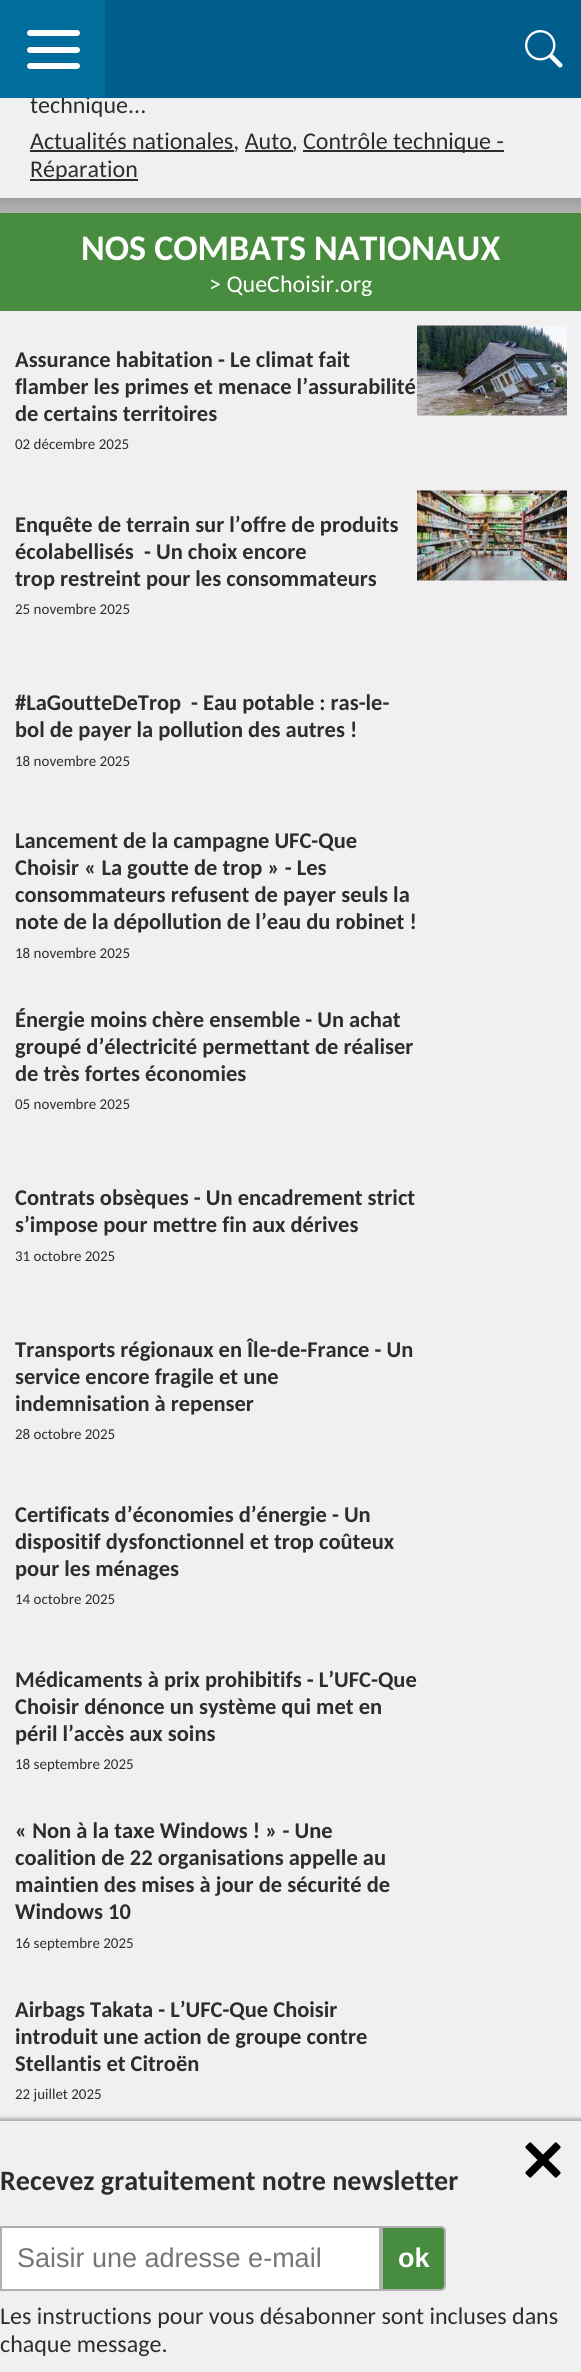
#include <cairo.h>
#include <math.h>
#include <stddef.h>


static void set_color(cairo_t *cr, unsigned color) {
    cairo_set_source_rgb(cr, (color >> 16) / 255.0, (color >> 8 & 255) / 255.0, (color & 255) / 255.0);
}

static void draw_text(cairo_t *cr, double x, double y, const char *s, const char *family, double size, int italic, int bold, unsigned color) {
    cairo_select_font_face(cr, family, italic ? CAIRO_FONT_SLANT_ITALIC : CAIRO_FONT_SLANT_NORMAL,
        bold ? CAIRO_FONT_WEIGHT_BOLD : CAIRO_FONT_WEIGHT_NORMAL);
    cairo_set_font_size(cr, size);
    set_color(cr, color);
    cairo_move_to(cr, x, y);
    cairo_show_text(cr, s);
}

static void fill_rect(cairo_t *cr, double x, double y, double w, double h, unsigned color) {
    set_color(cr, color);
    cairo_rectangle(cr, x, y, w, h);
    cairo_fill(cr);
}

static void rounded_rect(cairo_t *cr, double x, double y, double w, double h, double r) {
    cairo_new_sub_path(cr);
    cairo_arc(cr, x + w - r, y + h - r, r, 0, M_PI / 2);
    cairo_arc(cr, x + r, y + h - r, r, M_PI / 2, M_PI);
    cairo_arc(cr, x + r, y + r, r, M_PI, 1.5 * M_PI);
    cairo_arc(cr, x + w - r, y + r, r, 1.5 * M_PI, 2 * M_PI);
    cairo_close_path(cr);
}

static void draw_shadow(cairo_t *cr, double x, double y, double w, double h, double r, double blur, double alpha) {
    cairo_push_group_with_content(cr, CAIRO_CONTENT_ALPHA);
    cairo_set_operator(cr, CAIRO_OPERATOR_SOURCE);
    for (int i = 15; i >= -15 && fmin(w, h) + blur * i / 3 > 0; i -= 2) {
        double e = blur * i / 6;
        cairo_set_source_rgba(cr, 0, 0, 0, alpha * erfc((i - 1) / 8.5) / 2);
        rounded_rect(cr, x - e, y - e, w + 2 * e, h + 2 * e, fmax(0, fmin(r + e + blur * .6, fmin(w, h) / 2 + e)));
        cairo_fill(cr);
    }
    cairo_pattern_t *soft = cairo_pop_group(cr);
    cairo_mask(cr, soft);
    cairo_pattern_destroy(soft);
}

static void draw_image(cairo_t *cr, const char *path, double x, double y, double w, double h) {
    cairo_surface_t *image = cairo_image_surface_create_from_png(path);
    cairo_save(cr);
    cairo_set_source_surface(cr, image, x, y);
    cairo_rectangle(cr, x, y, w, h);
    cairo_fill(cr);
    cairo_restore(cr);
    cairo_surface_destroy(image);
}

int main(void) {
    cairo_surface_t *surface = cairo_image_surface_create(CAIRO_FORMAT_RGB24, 581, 2372);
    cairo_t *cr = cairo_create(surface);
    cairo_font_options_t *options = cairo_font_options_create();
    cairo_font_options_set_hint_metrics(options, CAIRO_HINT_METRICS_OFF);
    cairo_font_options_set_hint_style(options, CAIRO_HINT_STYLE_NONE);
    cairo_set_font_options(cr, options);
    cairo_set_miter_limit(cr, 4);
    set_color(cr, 0xB0B0B0);
    cairo_paint(cr);
    set_color(cr, 0x888888);
    draw_shadow(cr, 0, -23, 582, 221, 0, 7.5, 1);
    fill_rect(cr, 0, 98, 581, 100, 0xF0F0F0);
    draw_text(cr, 30, 113, "technique...", "Carlito", 24, 0, 0, 0x2D2D2D);
    fill_rect(cr, 105, 0, 476, 98, 0x005D8C);
    fill_rect(cr, 0, 0, 105, 98, 0x006D9C);
    set_color(cr, 0xFFFFFF);
    rounded_rect(cr, 27, 30, 53, 6, 3);
    cairo_fill(cr);
    rounded_rect(cr, 27, 47, 53, 6, 3);
    cairo_fill(cr);
    rounded_rect(cr, 27, 63, 53, 6, 3);
    cairo_fill(cr);
    draw_image(cr, "assets/img1.png", 525, 30, 38, 38);
    fill_rect(cr, 30, 150, 204, 2, 0x2D2D2D);
    draw_text(cr, 30, 149, "Actualités nationales, Auto,", "Carlito", 24, 0, 0, 0x2D2D2D);
    fill_rect(cr, 303, 150, 201, 2, 0x2D2D2D);
    draw_text(cr, 303, 149, "Contrôle technique -", "Carlito", 24, 0, 0, 0x2D2D2D);
    fill_rect(cr, 245, 150, 48, 2, 0x2D2D2D);
    fill_rect(cr, 30, 179, 108, 2, 0x2D2D2D);
    draw_text(cr, 30, 177, "Réparation", "Carlito", 24, 0, 0, 0x2D2D2D);
    fill_rect(cr, 0, 213, 581, 98, 0x488D3F);
    draw_text(cr, 81, 260, "NOS COMBATS NATIONAUX", "Carlito", 36, 0, 1, 0xFFFFFF);
    draw_text(cr, 209, 292, "> QueChoisir.org", "Carlito", 24, 0, 0, 0xFFFFFF);
    fill_rect(cr, 0, 311, 581, 1810, 0xF0F0F0);
    draw_text(cr, 15, 367, "Assurance habitation - Le climat fait", "Carlito", 22.5, 0, 1, 0x2D2D2D);
    draw_text(cr, 15, 394, "flamber les primes et menace l’assurabilité", "Carlito", 22.5, 0, 1, 0x2D2D2D);
    draw_text(cr, 15, 421, "de certains territoires", "Carlito", 22.5, 0, 1, 0x2D2D2D);
    draw_text(cr, 15, 449, "02 décembre 2025", "Carlito", 15, 0, 0, 0x2D2D2D);
    draw_image(cr, "assets/img2.png", 417, 325, 150, 91);
    draw_text(cr, 15, 532, "Enquête de terrain sur l’offre de produits", "Carlito", 22.5, 0, 1, 0x2D2D2D);
    draw_text(cr, 15, 559, "écolabellisés", "Carlito", 22.5, 0, 1, 0x2D2D2D);
    draw_text(cr, 144, 559, "- Un choix encore", "Carlito", 22.5, 0, 1, 0x2D2D2D);
    draw_text(cr, 15, 586, "trop restreint pour les consommateurs", "Carlito", 22.5, 0, 1, 0x2D2D2D);
    draw_text(cr, 15, 614, "25 novembre 2025", "Carlito", 15, 0, 0, 0x2D2D2D);
    draw_image(cr, "assets/img3.png", 417, 490, 150, 91);
    draw_text(cr, 15, 710, "#LaGoutteDeTrop", "Carlito", 22.5, 0, 1, 0x2D2D2D);
    draw_text(cr, 191, 710, "- Eau potable : ras-le-", "Carlito", 22.5, 0, 1, 0x2D2D2D);
    draw_text(cr, 15, 737, "bol de payer la pollution des autres !", "Carlito", 22.5, 0, 1, 0x2D2D2D);
    draw_text(cr, 15, 766, "18 novembre 2025", "Carlito", 15, 0, 0, 0x2D2D2D);
    draw_text(cr, 15, 848, "Lancement de la campagne UFC-Que", "Carlito", 22.5, 0, 1, 0x2D2D2D);
    draw_text(cr, 15, 875, "Choisir « La goutte de trop » - Les", "Carlito", 22.5, 0, 1, 0x2D2D2D);
    draw_text(cr, 15, 902, "consommateurs refusent de payer seuls la", "Carlito", 22.5, 0, 1, 0x2D2D2D);
    draw_text(cr, 15, 929, "note de la dépollution de l’eau du robinet !", "Carlito", 22.5, 0, 1, 0x2D2D2D);
    draw_text(cr, 15, 958, "18 novembre 2025", "Carlito", 15, 0, 0, 0x2D2D2D);
    draw_text(cr, 15, 1027, "Énergie moins chère ensemble - Un achat", "Carlito", 22.5, 0, 1, 0x2D2D2D);
    draw_text(cr, 15, 1054, "groupé d’électricité permettant de réaliser", "Carlito", 22.5, 0, 1, 0x2D2D2D);
    draw_text(cr, 15, 1081, "de très fortes économies", "Carlito", 22.5, 0, 1, 0x2D2D2D);
    draw_text(cr, 15, 1109, "05 novembre 2025", "Carlito", 15, 0, 0, 0x2D2D2D);
    draw_text(cr, 15, 1205, "Contrats obsèques - Un encadrement strict", "Carlito", 22.5, 0, 1, 0x2D2D2D);
    draw_text(cr, 15, 1232, "s’impose pour mettre fin aux dérives", "Carlito", 22.5, 0, 1, 0x2D2D2D);
    draw_text(cr, 15, 1261, "31 octobre 2025", "Carlito", 15, 0, 0, 0x2D2D2D);
    draw_text(cr, 15, 1357, "Transports régionaux en Île-de-France - Un", "Carlito", 22.5, 0, 1, 0x2D2D2D);
    draw_text(cr, 15, 1384, "service encore fragile et une", "Carlito", 22.5, 0, 1, 0x2D2D2D);
    draw_text(cr, 15, 1411, "indemnisation à repenser", "Carlito", 22.5, 0, 1, 0x2D2D2D);
    draw_text(cr, 15, 1439, "28 octobre 2025", "Carlito", 15, 0, 0, 0x2D2D2D);
    draw_text(cr, 15, 1522, "Certificats d’économies d’énergie - Un", "Carlito", 22.5, 0, 1, 0x2D2D2D);
    draw_text(cr, 15, 1549, "dispositif dysfonctionnel et trop coûteux", "Carlito", 22.5, 0, 1, 0x2D2D2D);
    draw_text(cr, 15, 1576, "pour les ménages", "Carlito", 22.5, 0, 1, 0x2D2D2D);
    draw_text(cr, 15, 1604, "14 octobre 2025", "Carlito", 15, 0, 0, 0x2D2D2D);
    draw_text(cr, 15, 1687, "Médicaments à prix prohibitifs - L’UFC-Que", "Carlito", 22.5, 0, 1, 0x2D2D2D);
    draw_text(cr, 15, 1714, "Choisir dénonce un système qui met en", "Carlito", 22.5, 0, 1, 0x2D2D2D);
    draw_text(cr, 15, 1741, "péril l’accès aux soins", "Carlito", 22.5, 0, 1, 0x2D2D2D);
    draw_text(cr, 15, 1769, "18 septembre 2025", "Carlito", 15, 0, 0, 0x2D2D2D);
    draw_text(cr, 15, 1838, "« Non à la taxe Windows ! » - Une", "Carlito", 22.5, 0, 1, 0x2D2D2D);
    draw_text(cr, 15, 1865, "coalition de 22 organisations appelle au", "Carlito", 22.5, 0, 1, 0x2D2D2D);
    draw_text(cr, 15, 1892, "maintien des mises à jour de sécurité de", "Carlito", 22.5, 0, 1, 0x2D2D2D);
    draw_text(cr, 15, 1919, "Windows 10", "Carlito", 22.5, 0, 1, 0x2D2D2D);
    draw_text(cr, 15, 1948, "16 septembre 2025", "Carlito", 15, 0, 0, 0x2D2D2D);
    draw_text(cr, 15, 2017, "Airbags Takata - L’UFC-Que Choisir", "Carlito", 22.5, 0, 1, 0x2D2D2D);
    draw_text(cr, 15, 2044, "introduit une action de groupe contre", "Carlito", 22.5, 0, 1, 0x2D2D2D);
    draw_text(cr, 15, 2071, "Stellantis et Citroën", "Carlito", 22.5, 0, 1, 0x2D2D2D);
    draw_text(cr, 15, 2099, "22 juillet 2025", "Carlito", 15, 0, 0, 0x2D2D2D);
    set_color(cr, 0xB0B0B0);
    draw_shadow(cr, -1, 2118, 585, 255, 0, 1.5, 1);
    fill_rect(cr, 0, 2121, 581, 251, 0xF0F0F0);
    draw_image(cr, "assets/img4.png", 525, 2142, 36, 36);
    draw_text(cr, 0, 2190, "Recevez gratuitement notre newsletter", "Carlito", 28.1, 0, 1, 0x2D2D2D);
    set_color(cr, 0xFFFFFF);
    cairo_rectangle(cr, 1, 2227, 379, 63);
    cairo_fill_preserve(cr);
    set_color(cr, 0xB0B0B0);
    cairo_stroke(cr);
    draw_text(cr, 17, 2267, "Saisir une adresse e-mail", "Liberation Sans", 27, 0, 0, 0x757575);
    set_color(cr, 0x488D3F);
    cairo_new_path(cr);
    cairo_move_to(cr, 382, 2227);
    cairo_line_to(cr, 441, 2227);
    cairo_curve_to(cr, 443, 2227, 445, 2229, 445, 2231);
    cairo_line_to(cr, 445, 2286);
    cairo_curve_to(cr, 445, 2288, 443, 2290, 441, 2290);
    cairo_line_to(cr, 382, 2290);
    cairo_close_path(cr);
    cairo_fill_preserve(cr);
    set_color(cr, 0xB0B0B0);
    cairo_stroke(cr);
    draw_text(cr, 398, 2267, "ok", "Liberation Sans", 27, 0, 1, 0xFFFFFF);
    draw_text(cr, 0, 2324, "Les instructions pour vous désabonner sont incluses dans", "Carlito", 24, 0, 0, 0x2D2D2D);
    draw_text(cr, 0, 2352, "chaque message.", "Carlito", 24, 0, 0, 0x2D2D2D);
    cairo_surface_write_to_png(surface, "output.png");
    cairo_font_options_destroy(options);
    cairo_destroy(cr);
    cairo_surface_destroy(surface);
    return 0;
}
